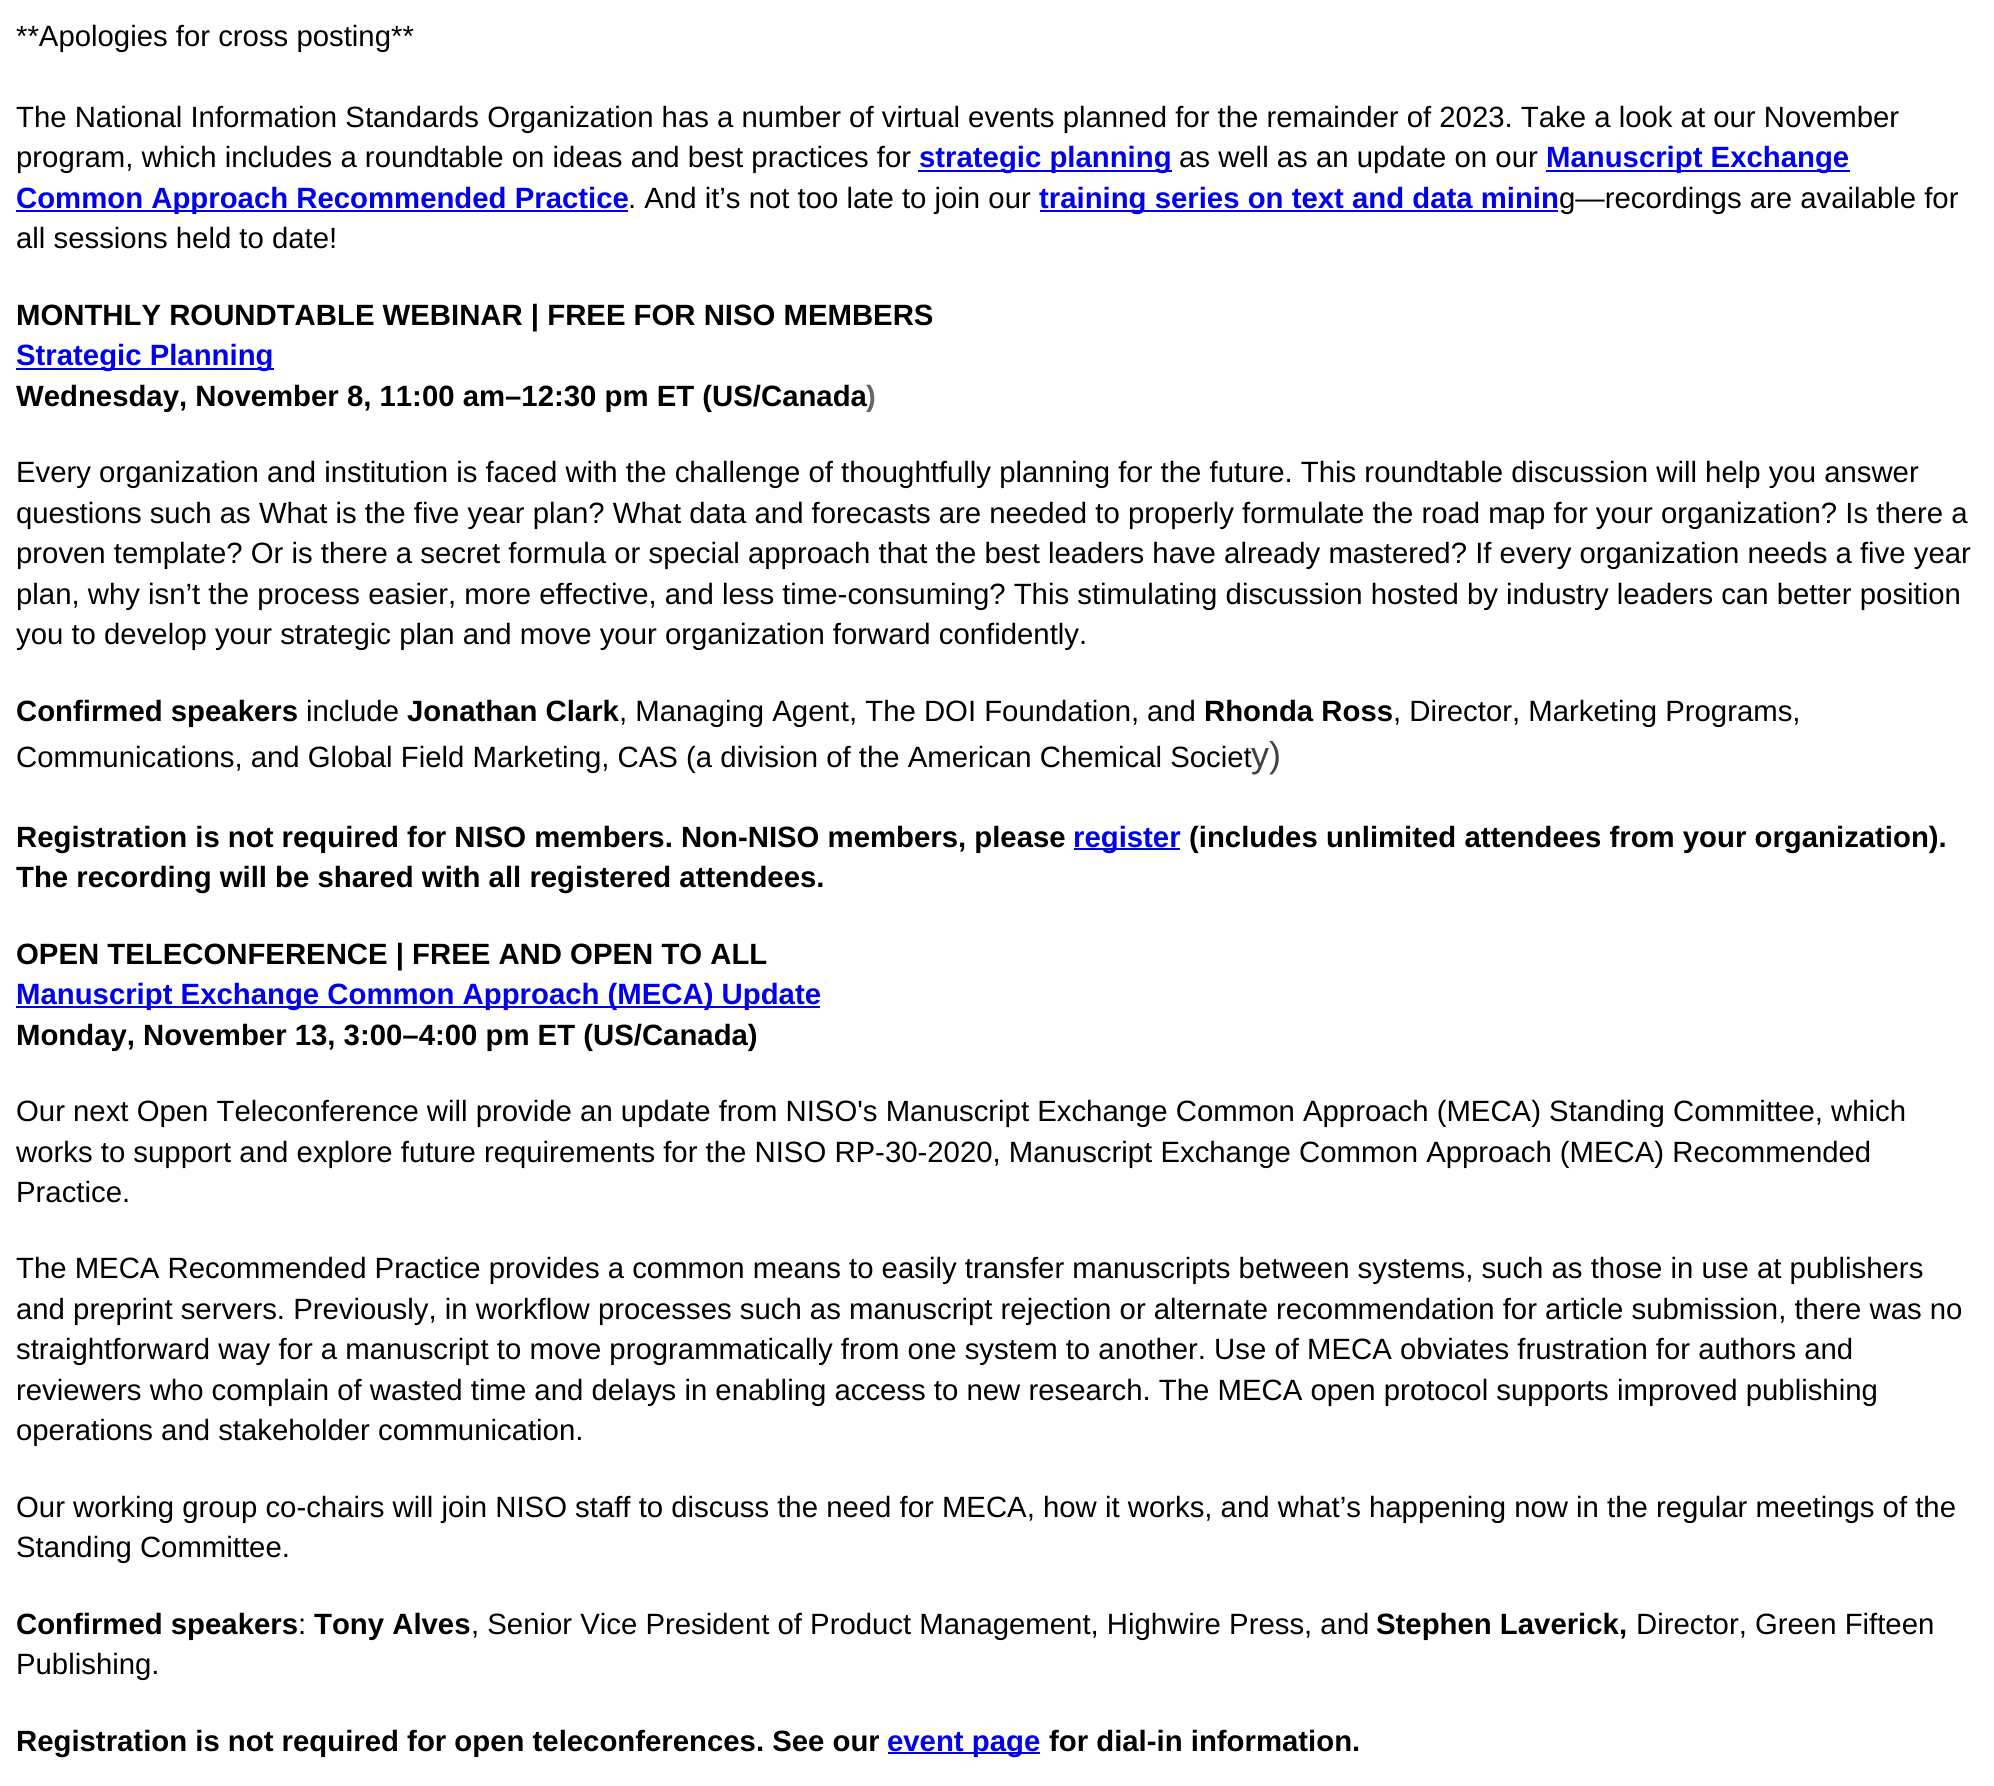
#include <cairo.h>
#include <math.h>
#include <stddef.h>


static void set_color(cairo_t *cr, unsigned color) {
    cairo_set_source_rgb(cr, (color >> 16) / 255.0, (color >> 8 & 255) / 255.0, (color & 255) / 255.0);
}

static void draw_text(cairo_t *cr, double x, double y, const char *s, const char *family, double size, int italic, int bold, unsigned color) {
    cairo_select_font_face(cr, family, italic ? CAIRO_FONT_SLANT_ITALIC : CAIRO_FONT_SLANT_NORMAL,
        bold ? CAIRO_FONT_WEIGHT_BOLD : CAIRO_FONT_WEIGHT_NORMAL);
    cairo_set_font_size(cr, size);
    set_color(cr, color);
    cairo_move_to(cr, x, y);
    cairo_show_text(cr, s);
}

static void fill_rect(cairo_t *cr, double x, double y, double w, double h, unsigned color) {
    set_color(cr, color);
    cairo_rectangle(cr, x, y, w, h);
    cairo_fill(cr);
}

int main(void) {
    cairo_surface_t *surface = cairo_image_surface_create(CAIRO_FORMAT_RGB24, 1994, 1786);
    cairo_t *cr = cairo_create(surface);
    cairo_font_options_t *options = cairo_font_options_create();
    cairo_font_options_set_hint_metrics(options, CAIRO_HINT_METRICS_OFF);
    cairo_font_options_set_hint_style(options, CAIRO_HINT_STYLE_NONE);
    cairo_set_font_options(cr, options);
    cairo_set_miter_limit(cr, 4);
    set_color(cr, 0xFFFFFF);
    cairo_paint(cr);
    draw_text(cr, 16, 46, "**Apologies for cross posting**", "Liberation Sans", 29.33, 0, 0, 0x000000);
    draw_text(cr, 16, 127, "The National Information Standards Organization has a number of virtual events planned for the remainder of 2023. Take a look at our November", "Liberation Sans", 29.33, 0, 0, 0x000000);
    draw_text(cr, 16, 167, "program, which includes a roundtable on ideas and best practices for", "Liberation Sans", 29.33, 0, 0, 0x000000);
    fill_rect(cr, 918, 170, 254, 2, 0x0000EE);
    draw_text(cr, 919, 167, "strategic planning", "Liberation Sans", 29.33, 0, 1, 0x0000EE);
    draw_text(cr, 1179, 167, "as well as an update on our", "Liberation Sans", 29.33, 0, 0, 0x000000);
    fill_rect(cr, 1546, 170, 304, 2, 0x0000EE);
    draw_text(cr, 1546, 167, "Manuscript Exchange", "Liberation Sans", 29.33, 0, 1, 0x0000EE);
    fill_rect(cr, 16, 210, 612, 2, 0x0000EE);
    draw_text(cr, 16, 208, "Common Approach Recommended Practice", "Liberation Sans", 29.33, 0, 1, 0x0000EE);
    draw_text(cr, 628, 208, ". And it’s not too late to join our", "Liberation Sans", 29.33, 0, 0, 0x000000);
    fill_rect(cr, 1040, 210, 518, 2, 0x0000EE);
    draw_text(cr, 1039, 208, "training series on text and data minin", "Liberation Sans", 29.33, 0, 1, 0x0000EE);
    draw_text(cr, 1559, 208, "g—recordings are available for", "Liberation Sans", 29.33, 0, 0, 0x000000);
    draw_text(cr, 16, 248, "all sessions held to date!", "Liberation Sans", 29.33, 0, 0, 0x000000);
    draw_text(cr, 16, 325, "MONTHLY ROUNDTABLE WEBINAR | FREE FOR NISO MEMBERS", "Liberation Sans", 29.33, 0, 1, 0x000000);
    fill_rect(cr, 16, 368, 258, 2, 0x0000EE);
    draw_text(cr, 16, 365, "Strategic Planning", "Liberation Sans", 29.33, 0, 1, 0x0000EE);
    draw_text(cr, 16, 406, "Wednesday, November 8, 11:00 am–12:30 pm ET (US/Canada", "Liberation Sans", 29.33, 0, 1, 0x000000);
    draw_text(cr, 866, 406, ")", "Liberation Sans", 29.33, 0, 1, 0x666666);
    draw_text(cr, 16, 482, "Every organization and institution is faced with the challenge of thoughtfully planning for the future. This roundtable discussion will help you answer", "Liberation Sans", 29.33, 0, 0, 0x000000);
    draw_text(cr, 16, 523, "questions such as What is the five year plan? What data and forecasts are needed to properly formulate the road map for your organization? Is there a", "Liberation Sans", 29.33, 0, 0, 0x000000);
    draw_text(cr, 16, 563, "proven template? Or is there a secret formula or special approach that the best leaders have already mastered? If every organization needs a five year", "Liberation Sans", 29.33, 0, 0, 0x000000);
    draw_text(cr, 16, 604, "plan, why isn’t the process easier, more effective, and less time-consuming? This stimulating discussion hosted by industry leaders can better position", "Liberation Sans", 29.33, 0, 0, 0x000000);
    draw_text(cr, 16, 644, "you to develop your strategic plan and move your organization forward confidently.", "Liberation Sans", 29.33, 0, 0, 0x000000);
    draw_text(cr, 16, 721, "Confirmed speakers", "Liberation Sans", 29.33, 0, 1, 0x000000);
    draw_text(cr, 306, 721, "include", "Liberation Sans", 29.33, 0, 0, 0x000000);
    draw_text(cr, 407, 721, "Jonathan Clark", "Liberation Sans", 29.33, 0, 1, 0x000000);
    draw_text(cr, 619, 721, ", Managing Agent, The DOI Foundation,", "Liberation Sans", 29.33, 0, 0, 0x000000);
    draw_text(cr, 1147, 721, "and", "Liberation Sans", 29.33, 0, 0, 0x000000);
    draw_text(cr, 1204, 721, "Rhonda Ross", "Liberation Sans", 29.33, 0, 1, 0x000000);
    draw_text(cr, 1393, 721, ", Director, Marketing Programs,", "Liberation Sans", 29.33, 0, 0, 0x000000);
    draw_text(cr, 16, 767, "Communications, and Global Field Marketing, CAS (a division of the American Chemical Societ", "Liberation Sans", 29.33, 0, 0, 0x000000);
    draw_text(cr, 1251, 767, "y)", "Liberation Sans", 36, 0, 0, 0x42423C);
    draw_text(cr, 16, 847, "Registration is not required for NISO members. Non-NISO members, please", "Liberation Sans", 29.33, 0, 1, 0x000000);
    fill_rect(cr, 1074, 848, 106, 2, 0x0000EE);
    draw_text(cr, 1073, 847, "register", "Liberation Sans", 29.33, 0, 1, 0x0000EE);
    draw_text(cr, 1189, 847, "(includes unlimited attendees from your organization).", "Liberation Sans", 29.33, 0, 1, 0x000000);
    draw_text(cr, 16, 887, "The recording will be shared with all registered attendees.", "Liberation Sans", 29.33, 0, 1, 0x000000);
    draw_text(cr, 16, 964, "OPEN TELECONFERENCE | FREE AND OPEN TO ALL", "Liberation Sans", 29.33, 0, 1, 0x000000);
    fill_rect(cr, 16, 1006, 804, 2, 0x0000EE);
    draw_text(cr, 16, 1004, "Manuscript Exchange Common Approach (MECA) Update", "Liberation Sans", 29.33, 0, 1, 0x0000EE);
    draw_text(cr, 16, 1045, "Monday, November 13, 3:00–4:00 pm ET (US/Canada)", "Liberation Sans", 29.33, 0, 1, 0x000000);
    draw_text(cr, 16, 1121, "Our next Open Teleconference will provide an update from NISO's Manuscript Exchange Common Approach (MECA) Standing Committee, which", "Liberation Sans", 29.33, 0, 0, 0x000000);
    draw_text(cr, 16, 1162, "works to support and explore future requirements for the NISO RP-30-2020, Manuscript Exchange Common Approach (MECA) Recommended", "Liberation Sans", 29.33, 0, 0, 0x000000);
    draw_text(cr, 16, 1202, "Practice.", "Liberation Sans", 29.33, 0, 0, 0x000000);
    draw_text(cr, 16, 1278, "The MECA Recommended Practice provides a common means to easily transfer manuscripts between systems, such as those in use at publishers", "Liberation Sans", 29.33, 0, 0, 0x000000);
    draw_text(cr, 16, 1319, "and preprint servers. Previously, in workflow processes such as manuscript rejection or alternate recommendation for article submission, there was no", "Liberation Sans", 29.33, 0, 0, 0x000000);
    draw_text(cr, 16, 1359, "straightforward way for a manuscript to move programmatically from one system to another. Use of MECA obviates frustration for authors and", "Liberation Sans", 29.33, 0, 0, 0x000000);
    draw_text(cr, 16, 1400, "reviewers who complain of wasted time and delays in enabling access to new research. The MECA open protocol supports improved publishing", "Liberation Sans", 29.33, 0, 0, 0x000000);
    draw_text(cr, 16, 1440, "operations and stakeholder communication.", "Liberation Sans", 29.33, 0, 0, 0x000000);
    draw_text(cr, 16, 1517, "Our working group co-chairs will join NISO staff to discuss the need for MECA, how it works, and what’s happening now in the regular meetings of the", "Liberation Sans", 29.33, 0, 0, 0x000000);
    draw_text(cr, 16, 1557, "Standing Committee.", "Liberation Sans", 29.33, 0, 0, 0x000000);
    draw_text(cr, 16, 1634, "Confirmed speakers", "Liberation Sans", 29.33, 0, 1, 0x000000);
    draw_text(cr, 298, 1634, ":", "Liberation Sans", 29.33, 0, 0, 0x000000);
    draw_text(cr, 314, 1634, "Tony Alves", "Liberation Sans", 29.33, 0, 1, 0x000000);
    draw_text(cr, 471, 1634, ", Senior Vice President of Product Management, Highwire Press, and", "Liberation Sans", 29.33, 0, 0, 0x000000);
    draw_text(cr, 1376, 1634, "Stephen Laverick,", "Liberation Sans", 29.33, 0, 1, 0x000000);
    draw_text(cr, 1636, 1634, "Director, Green Fifteen", "Liberation Sans", 29.33, 0, 0, 0x000000);
    draw_text(cr, 16, 1674, "Publishing.", "Liberation Sans", 29.33, 0, 0, 0x000000);
    draw_text(cr, 16, 1751, "Registration is not required for open teleconferences. See our", "Liberation Sans", 29.33, 0, 1, 0x000000);
    fill_rect(cr, 888, 1752, 152, 2, 0x0000EE);
    draw_text(cr, 887, 1751, "event page", "Liberation Sans", 29.33, 0, 1, 0x0000EE);
    draw_text(cr, 1049, 1751, "for dial-in information.", "Liberation Sans", 29.33, 0, 1, 0x000000);
    cairo_surface_write_to_png(surface, "output.png");
    cairo_font_options_destroy(options);
    cairo_destroy(cr);
    cairo_surface_destroy(surface);
    return 0;
}
